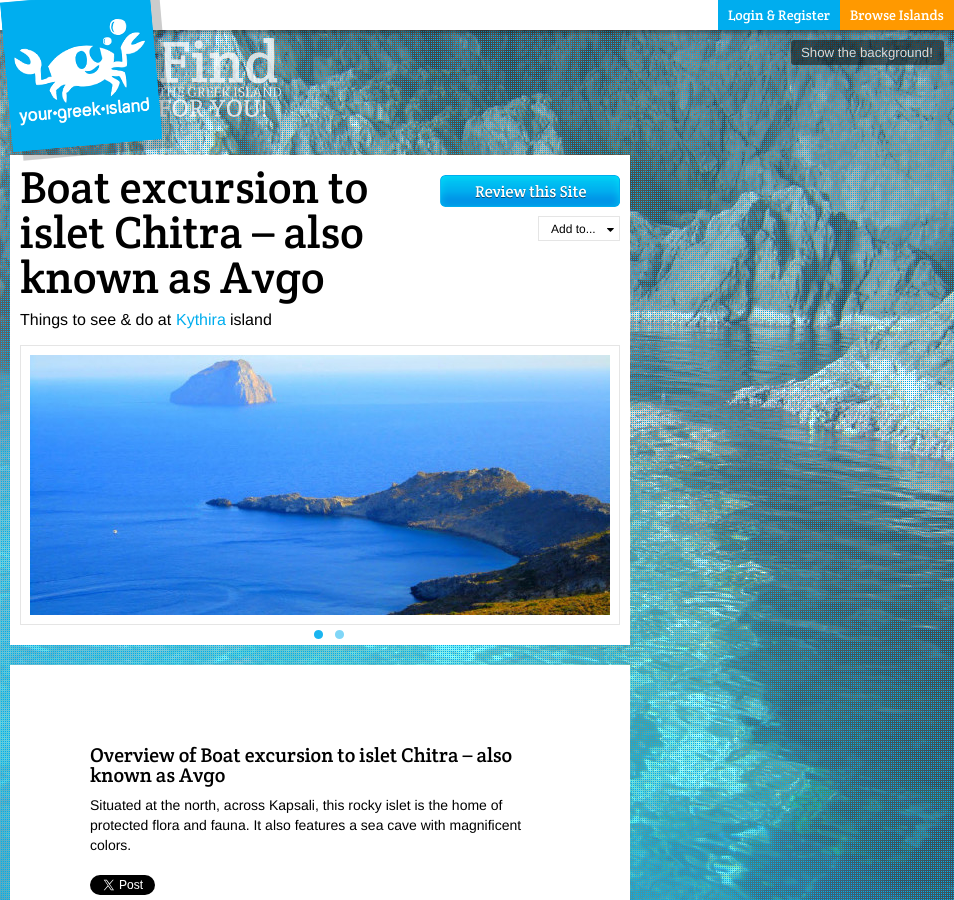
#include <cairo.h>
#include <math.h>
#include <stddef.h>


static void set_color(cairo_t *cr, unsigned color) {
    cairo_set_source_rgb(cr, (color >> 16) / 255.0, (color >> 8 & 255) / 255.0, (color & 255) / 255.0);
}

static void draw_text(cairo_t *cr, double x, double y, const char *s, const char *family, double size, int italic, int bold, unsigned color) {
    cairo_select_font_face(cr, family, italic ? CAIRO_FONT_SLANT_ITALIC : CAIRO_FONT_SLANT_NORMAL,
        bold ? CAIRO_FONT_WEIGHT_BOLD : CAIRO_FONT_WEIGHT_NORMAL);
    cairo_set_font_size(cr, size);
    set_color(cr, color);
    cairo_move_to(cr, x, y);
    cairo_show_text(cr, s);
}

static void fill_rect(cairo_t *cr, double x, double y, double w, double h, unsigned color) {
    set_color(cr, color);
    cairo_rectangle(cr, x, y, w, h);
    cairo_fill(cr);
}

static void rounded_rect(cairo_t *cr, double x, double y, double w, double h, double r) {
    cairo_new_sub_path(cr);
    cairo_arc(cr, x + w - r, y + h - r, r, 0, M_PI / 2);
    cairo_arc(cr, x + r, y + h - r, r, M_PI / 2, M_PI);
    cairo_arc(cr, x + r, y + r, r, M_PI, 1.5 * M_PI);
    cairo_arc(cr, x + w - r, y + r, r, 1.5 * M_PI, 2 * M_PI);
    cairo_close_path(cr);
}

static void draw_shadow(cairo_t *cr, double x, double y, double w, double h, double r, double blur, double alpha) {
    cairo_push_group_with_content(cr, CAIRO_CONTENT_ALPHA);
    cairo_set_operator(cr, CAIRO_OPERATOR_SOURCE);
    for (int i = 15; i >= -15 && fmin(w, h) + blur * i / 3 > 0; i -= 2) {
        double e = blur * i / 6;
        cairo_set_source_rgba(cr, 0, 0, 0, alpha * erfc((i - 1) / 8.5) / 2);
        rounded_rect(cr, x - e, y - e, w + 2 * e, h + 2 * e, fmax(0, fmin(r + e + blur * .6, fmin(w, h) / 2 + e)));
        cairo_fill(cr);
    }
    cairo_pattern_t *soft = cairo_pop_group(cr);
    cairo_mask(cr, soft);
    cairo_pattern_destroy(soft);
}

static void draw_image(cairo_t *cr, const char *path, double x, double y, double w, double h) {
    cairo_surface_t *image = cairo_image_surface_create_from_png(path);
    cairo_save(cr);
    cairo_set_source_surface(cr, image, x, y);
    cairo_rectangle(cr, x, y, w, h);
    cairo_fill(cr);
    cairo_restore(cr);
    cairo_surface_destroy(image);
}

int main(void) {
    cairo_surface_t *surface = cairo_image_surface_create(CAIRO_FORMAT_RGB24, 954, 900);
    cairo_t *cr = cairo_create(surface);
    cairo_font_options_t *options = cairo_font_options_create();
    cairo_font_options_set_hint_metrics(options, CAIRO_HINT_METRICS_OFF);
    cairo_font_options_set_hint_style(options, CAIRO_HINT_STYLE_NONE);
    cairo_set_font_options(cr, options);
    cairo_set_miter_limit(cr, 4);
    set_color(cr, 0xFFFFFF);
    cairo_paint(cr);
    draw_image(cr, "assets/img3.png", 0, 30, 954, 870);
    draw_image(cr, "assets/img4.png", 1, 31, 953, 869);
    set_color(cr, 0x000000);
    draw_shadow(cr, -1, 1, 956, 32, 0, 1.5, 0.3);
    fill_rect(cr, 0, 0, 718, 30, 0xFFFFFF);
    draw_image(cr, "assets/img2.png", 158, 38, 124, 79);
    fill_rect(cr, 10, 155, 620, 490, 0xFFFFFF);
    draw_image(cr, "assets/img1.png", 0, 0, 173, 161);
    fill_rect(cr, 718, 0, 122, 30, 0x00ADEE);
    draw_text(cr, 728, 20, "Login & Register", "Crete Round", 14, 0, 0, 0xFFFFFF);
    fill_rect(cr, 840, 0, 114, 30, 0xFF9900);
    draw_text(cr, 850, 20, "Browse Islands", "Crete Round", 14, 0, 0, 0xFFFFFF);
    cairo_set_source_rgba(cr, 0, 0, 0, 0.5);
    rounded_rect(cr, 791, 40, 153, 25, 3);
    cairo_fill(cr);
    draw_text(cr, 801, 57, "Show the background!", "Liberation Sans", 13.25, 0, 0, 0xD5DADB);
    draw_text(cr, 20, 203, "Boat excursion to", "Crete Round", 45, 0, 0, 0x000000);
    draw_text(cr, 20, 248, "islet Chitra – also", "Crete Round", 45, 0, 0, 0x000000);
    draw_text(cr, 20, 293, "known as Avgo", "Crete Round", 45, 0, 0, 0x000000);
    draw_image(cr, "assets/img5.png", 440, 175, 180, 32);
    cairo_rectangle(cr, 538.5, 216.5, 81, 24);
    set_color(cr, 0xE5E5E5);
    cairo_set_line_width(cr, 1);
    cairo_stroke(cr);
    draw_text(cr, 551, 233, "Add to...", "Liberation Sans", 12, 0, 0, 0x000000);
    draw_image(cr, "assets/img6.png", 607, 228, 7, 4);
    draw_text(cr, 20, 325, "Things to see & do at", "Liberation Sans", 16, 0, 0, 0x000000);
    draw_text(cr, 176, 325, "Kythira", "Liberation Sans", 16, 0, 0, 0x00ADEE);
    draw_text(cr, 230, 325, "island", "Liberation Sans", 16, 0, 0, 0x000000);
    cairo_rectangle(cr, 20.5, 345.5, 599, 279);
    set_color(cr, 0xE5E5E5);
    cairo_stroke(cr);
    draw_image(cr, "assets/img7.png", 30, 355, 580, 260);
    set_color(cr, 0x1AB5F0);
    cairo_arc(cr, 318.5, 634.5, 4.5, 0, 2 * M_PI);
    cairo_fill(cr);
    set_color(cr, 0x80D6F7);
    cairo_arc(cr, 339.5, 634.5, 4.5, 0, 2 * M_PI);
    cairo_fill(cr);
    fill_rect(cr, 10, 665, 620, 235, 0xFFFFFF);
    draw_text(cr, 90, 762, "Overview of Boat excursion to islet Chitra – also", "Crete Round", 20, 0, 0, 0x000000);
    draw_text(cr, 90, 782, "known as Avgo", "Crete Round", 20, 0, 0, 0x000000);
    draw_text(cr, 90, 810, "Situated at the north, across Kapsali, this rocky islet is the home of", "Liberation Sans", 14, 0, 0, 0x000000);
    draw_text(cr, 90, 830, "protected flora and fauna. It also features a sea cave with magnificent", "Liberation Sans", 14, 0, 0, 0x000000);
    draw_text(cr, 90, 850, "colors.", "Liberation Sans", 14, 0, 0, 0x000000);
    draw_image(cr, "assets/img8.png", 90, 875, 65, 20);
    cairo_surface_write_to_png(surface, "output.png");
    cairo_font_options_destroy(options);
    cairo_destroy(cr);
    cairo_surface_destroy(surface);
    return 0;
}
